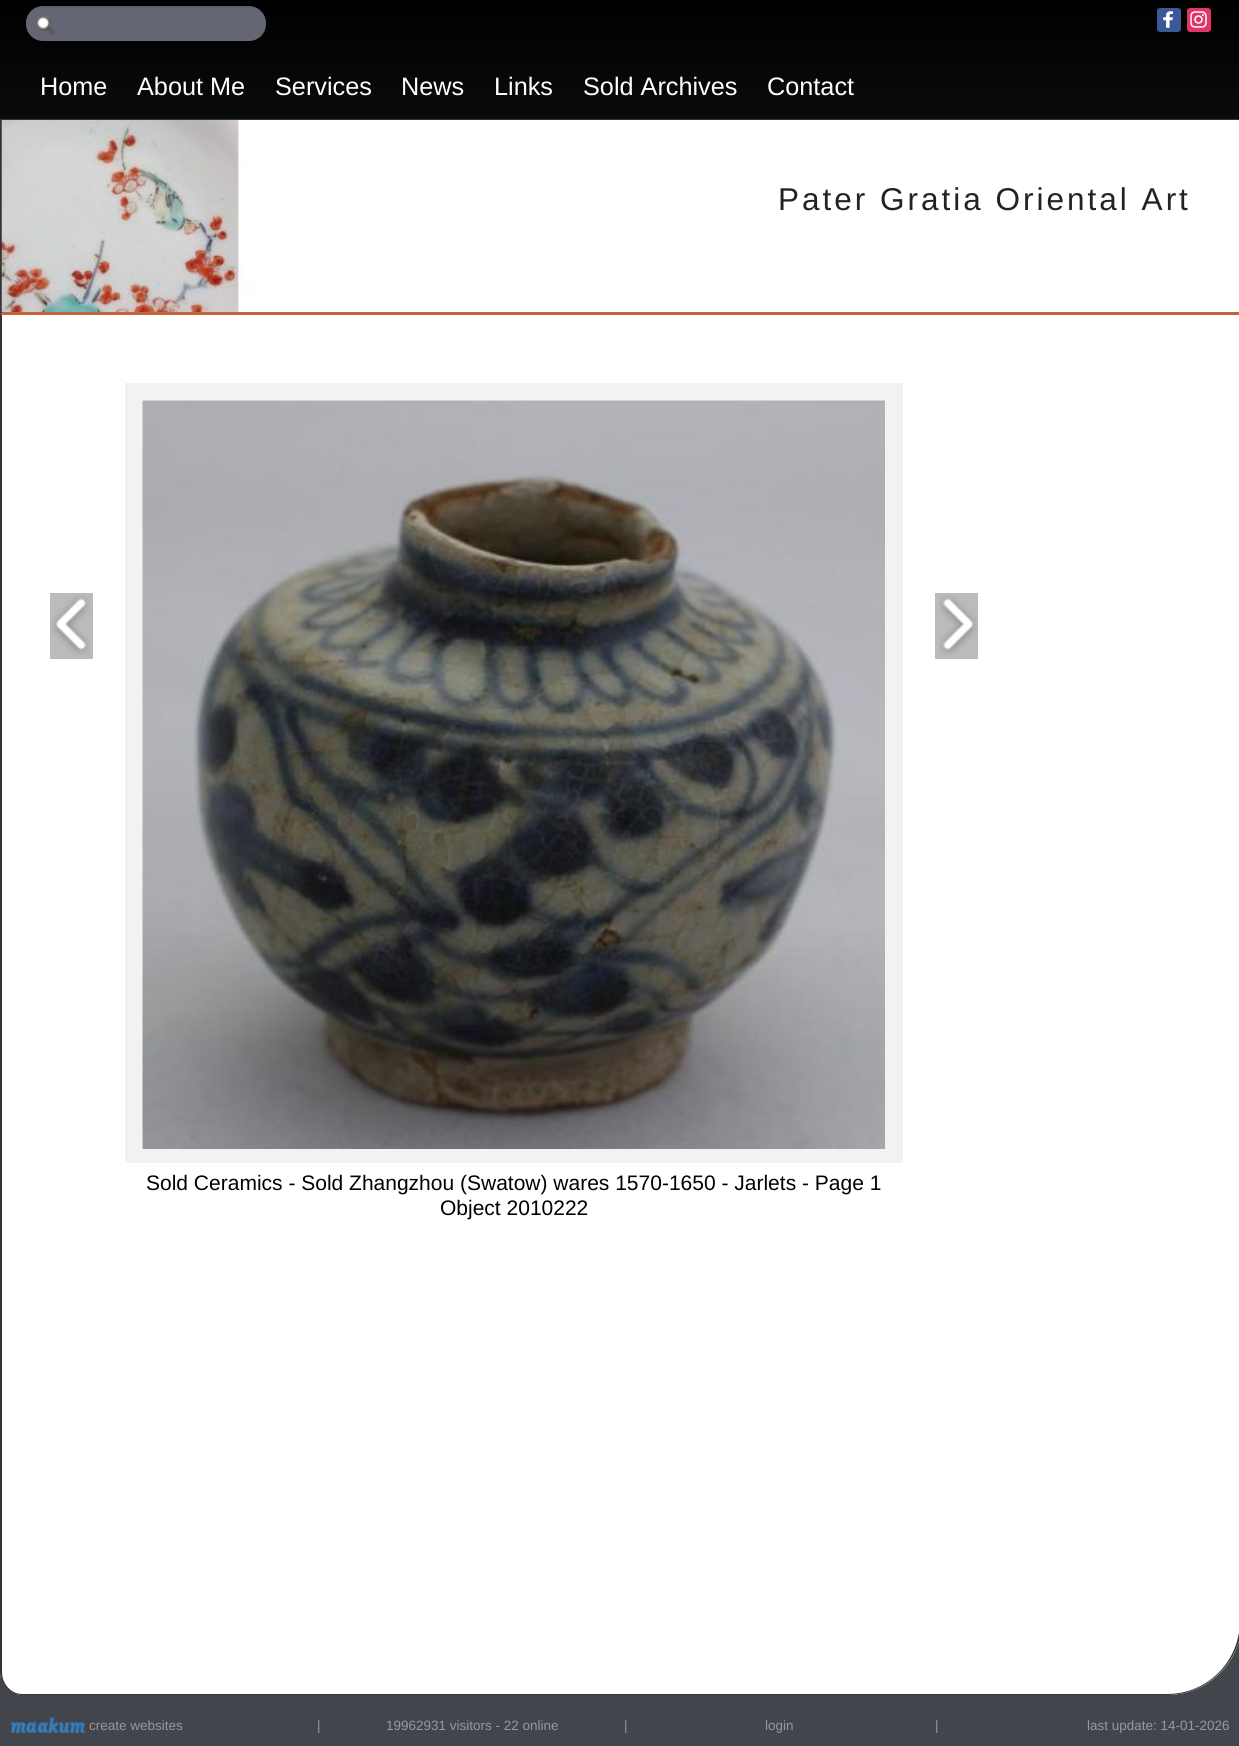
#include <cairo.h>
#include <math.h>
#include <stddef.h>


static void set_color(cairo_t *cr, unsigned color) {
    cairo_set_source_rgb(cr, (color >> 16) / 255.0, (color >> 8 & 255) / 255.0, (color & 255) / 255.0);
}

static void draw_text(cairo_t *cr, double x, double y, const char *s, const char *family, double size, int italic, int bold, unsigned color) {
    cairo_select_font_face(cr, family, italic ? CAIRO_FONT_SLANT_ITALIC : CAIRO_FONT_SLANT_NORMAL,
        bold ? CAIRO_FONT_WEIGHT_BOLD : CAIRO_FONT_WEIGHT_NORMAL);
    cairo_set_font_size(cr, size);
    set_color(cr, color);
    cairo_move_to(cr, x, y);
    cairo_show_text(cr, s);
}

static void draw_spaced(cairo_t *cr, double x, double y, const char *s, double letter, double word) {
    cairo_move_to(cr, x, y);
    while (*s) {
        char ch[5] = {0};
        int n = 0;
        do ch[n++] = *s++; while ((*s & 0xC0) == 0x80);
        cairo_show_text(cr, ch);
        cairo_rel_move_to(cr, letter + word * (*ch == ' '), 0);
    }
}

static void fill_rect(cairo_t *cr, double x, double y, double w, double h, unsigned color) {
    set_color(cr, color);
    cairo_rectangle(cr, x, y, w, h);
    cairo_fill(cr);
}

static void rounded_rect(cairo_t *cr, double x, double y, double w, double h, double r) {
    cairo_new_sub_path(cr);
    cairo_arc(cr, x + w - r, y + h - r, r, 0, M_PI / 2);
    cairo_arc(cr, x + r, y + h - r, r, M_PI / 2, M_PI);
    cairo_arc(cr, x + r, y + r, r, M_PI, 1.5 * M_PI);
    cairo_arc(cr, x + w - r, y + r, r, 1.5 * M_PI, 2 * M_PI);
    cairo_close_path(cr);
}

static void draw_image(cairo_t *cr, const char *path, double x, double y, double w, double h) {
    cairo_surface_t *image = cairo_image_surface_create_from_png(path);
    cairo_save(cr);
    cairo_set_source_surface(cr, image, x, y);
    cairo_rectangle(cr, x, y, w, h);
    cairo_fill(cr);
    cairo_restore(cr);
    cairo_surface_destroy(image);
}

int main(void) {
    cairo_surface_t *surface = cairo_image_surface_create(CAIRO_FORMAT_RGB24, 1239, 1746);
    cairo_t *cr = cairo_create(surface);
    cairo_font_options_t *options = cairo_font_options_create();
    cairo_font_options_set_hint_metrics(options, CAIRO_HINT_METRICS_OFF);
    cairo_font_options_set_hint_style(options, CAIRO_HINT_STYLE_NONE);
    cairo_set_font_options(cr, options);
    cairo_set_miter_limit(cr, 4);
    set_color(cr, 0x43454D);
    cairo_paint(cr);
    draw_image(cr, "assets/img1.png", 0, 0, 1239, 315);
    set_color(cr, 0x646773);
    rounded_rect(cr, 26, 6, 240, 35, 17);
    cairo_fill(cr);
    draw_image(cr, "assets/img2.png", 36, 15, 20, 21);
    cairo_set_source_rgba(cr, 0, 0, 0, 0.07);
    cairo_new_path(cr);
    cairo_move_to(cr, 42, 8);
    cairo_line_to(cr, 249, 8);
    cairo_curve_to(cr, 258, 8, 266, 15, 266, 24);
    cairo_curve_to(cr, 266, -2, 229, 6, 215, 6);
    cairo_line_to(cr, 77, 6);
    cairo_curve_to(cr, 63, 6, 26, -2, 26, 24);
    cairo_curve_to(cr, 26, 15, 33, 8, 42, 8);
    cairo_close_path(cr);
    cairo_fill(cr);
    set_color(cr, 0x3B5998);
    rounded_rect(cr, 1157, 8, 24, 24, 3);
    cairo_fill(cr);
    draw_image(cr, "assets/img3.png", 1163, 11, 10, 17);
    set_color(cr, 0xE03566);
    rounded_rect(cr, 1187, 8, 24, 24, 3);
    cairo_fill(cr);
    draw_image(cr, "assets/img4.png", 1190, 11, 17, 17);
    draw_text(cr, 40, 95, "Home", "Liberation Sans", 25.25, 0, 0, 0xFFFFFF);
    draw_text(cr, 137, 95, "About Me", "Liberation Sans", 25.25, 0, 0, 0xFFFFFF);
    draw_text(cr, 275, 95, "Services", "Liberation Sans", 25.25, 0, 0, 0xFFFFFF);
    draw_text(cr, 401, 95, "News", "Liberation Sans", 25.25, 0, 0, 0xFFFFFF);
    draw_text(cr, 494, 95, "Links", "Liberation Sans", 25.25, 0, 0, 0xFFFFFF);
    draw_text(cr, 583, 95, "Sold Archives", "Liberation Sans", 25.25, 0, 0, 0xFFFFFF);
    draw_text(cr, 767, 95, "Contact", "Liberation Sans", 25.25, 0, 0, 0xFFFFFF);
    fill_rect(cr, 0, 119, 1239, 1, 0x333333);
    set_color(cr, 0xC5643A);
    cairo_new_path(cr);
    cairo_move_to(cr, 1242, 315);
    cairo_line_to(cr, 0, 315);
    cairo_line_to(cr, 2, 312);
    cairo_line_to(cr, 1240, 312);
    cairo_close_path(cr);
    cairo_fill(cr);
    set_color(cr, 0x333333);
    cairo_new_path(cr);
    cairo_move_to(cr, 0, 315);
    cairo_line_to(cr, 0, 118);
    cairo_line_to(cr, 2, 120);
    cairo_line_to(cr, 2, 312);
    cairo_close_path(cr);
    cairo_fill(cr);
    draw_image(cr, "assets/img5.png", 1, 120, 1238, 192);
    cairo_set_font_size(cr, 31.5);
    set_color(cr, 0x222222);
    draw_spaced(cr, 778, 210, "Pater Gratia Oriental Art", 3, 0);
    set_color(cr, 0xFFFFFF);
    cairo_new_path(cr);
    cairo_move_to(cr, 0, 315);
    cairo_line_to(cr, 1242, 315);
    cairo_line_to(cr, 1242, 1620);
    cairo_curve_to(cr, 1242, 1661.5, 1208.5, 1695, 1167, 1695);
    cairo_line_to(cr, 23, 1695);
    cairo_curve_to(cr, 10.5, 1695, 0, 1684.5, 0, 1672);
    cairo_close_path(cr);
    cairo_fill(cr);
    set_color(cr, 0x333333);
    cairo_set_fill_rule(cr, CAIRO_FILL_RULE_EVEN_ODD);
    cairo_new_path(cr);
    cairo_move_to(cr, 0, 315);
    cairo_line_to(cr, 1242, 315);
    cairo_line_to(cr, 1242, 1620);
    cairo_curve_to(cr, 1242, 1661, 1208, 1695, 1167, 1695);
    cairo_line_to(cr, 22, 1695);
    cairo_curve_to(cr, 10, 1695, 0, 1685, 0, 1672);
    cairo_close_path(cr);
    cairo_move_to(cr, 2, 315);
    cairo_line_to(cr, 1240, 315);
    cairo_line_to(cr, 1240, 1620);
    cairo_curve_to(cr, 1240, 1661, 1208, 1694, 1167, 1694);
    cairo_line_to(cr, 22, 1694);
    cairo_curve_to(cr, 11, 1694, 2, 1684, 2, 1672);
    cairo_close_path(cr);
    cairo_fill(cr);
    fill_rect(cr, 50, 593, 43, 66, 0xBBBBBB);
    draw_image(cr, "assets/img6.png", 51, 595, 39, 61);
    fill_rect(cr, 125, 383, 778, 780, 0xF2F2F2);
    draw_image(cr, "assets/img7.png", 142, 400, 743, 749);
    fill_rect(cr, 935, 593, 43, 66, 0xBBBBBB);
    draw_image(cr, "assets/img8.png", 939, 595, 39, 61);
    draw_text(cr, 146, 1190, "Sold Ceramics - Sold Zhangzhou (Swatow) wares 1570-1650 - Jarlets - Page 1", "Liberation Sans", 21, 0, 0, 0x000000);
    draw_text(cr, 440, 1215, "Object 2010222", "Liberation Sans", 21, 0, 0, 0x000000);
    draw_image(cr, "assets/img9.png", 10, 1717, 76, 17);
    draw_text(cr, 89, 1730, "create websites", "Liberation Sans", 13.5, 0, 0, 0x999999);
    draw_text(cr, 317, 1730, "|", "Liberation Sans", 13.5, 0, 0, 0x999999);
    draw_text(cr, 386, 1730, "19962931 visitors - 22 online", "Liberation Sans", 13.5, 0, 0, 0x999999);
    draw_text(cr, 624, 1730, "|", "Liberation Sans", 13.5, 0, 0, 0x999999);
    draw_text(cr, 765, 1730, "login", "Liberation Sans", 13.5, 0, 0, 0x999999);
    draw_text(cr, 935, 1730, "|", "Liberation Sans", 13.5, 0, 0, 0x999999);
    draw_text(cr, 1087, 1730, "last update: 14-01-2026", "Liberation Sans", 13.5, 0, 0, 0x999999);
    cairo_surface_write_to_png(surface, "output.png");
    cairo_font_options_destroy(options);
    cairo_destroy(cr);
    cairo_surface_destroy(surface);
    return 0;
}
